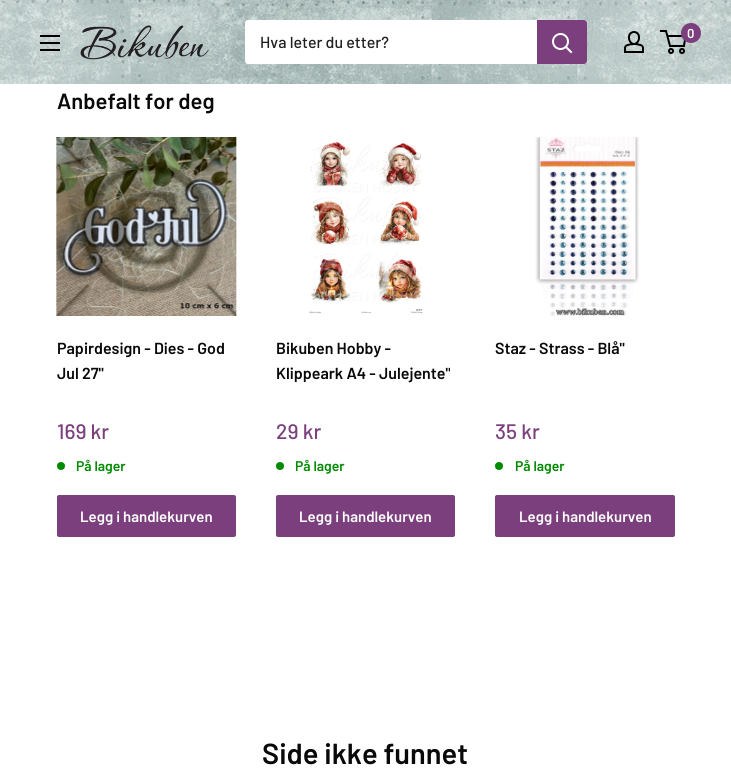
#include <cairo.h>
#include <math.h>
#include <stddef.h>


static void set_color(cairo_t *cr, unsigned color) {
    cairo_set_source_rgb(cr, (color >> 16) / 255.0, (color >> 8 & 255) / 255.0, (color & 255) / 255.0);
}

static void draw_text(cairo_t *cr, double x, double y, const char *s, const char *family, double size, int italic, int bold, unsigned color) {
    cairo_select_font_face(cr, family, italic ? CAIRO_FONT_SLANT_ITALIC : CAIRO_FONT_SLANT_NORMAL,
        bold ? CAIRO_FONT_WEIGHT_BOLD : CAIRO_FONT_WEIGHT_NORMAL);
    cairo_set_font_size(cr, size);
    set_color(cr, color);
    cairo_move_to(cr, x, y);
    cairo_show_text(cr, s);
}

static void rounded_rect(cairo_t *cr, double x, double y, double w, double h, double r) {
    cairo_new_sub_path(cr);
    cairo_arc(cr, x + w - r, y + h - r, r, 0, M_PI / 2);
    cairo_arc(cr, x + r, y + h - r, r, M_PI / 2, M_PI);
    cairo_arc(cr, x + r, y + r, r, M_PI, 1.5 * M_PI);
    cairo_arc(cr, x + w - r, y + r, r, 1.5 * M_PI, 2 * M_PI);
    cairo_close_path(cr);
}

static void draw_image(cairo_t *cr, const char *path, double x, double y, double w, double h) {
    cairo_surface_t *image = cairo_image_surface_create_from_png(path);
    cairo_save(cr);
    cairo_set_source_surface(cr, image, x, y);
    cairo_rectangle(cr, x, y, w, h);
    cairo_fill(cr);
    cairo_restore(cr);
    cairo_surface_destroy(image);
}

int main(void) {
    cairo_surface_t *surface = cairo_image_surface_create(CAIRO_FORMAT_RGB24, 731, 774);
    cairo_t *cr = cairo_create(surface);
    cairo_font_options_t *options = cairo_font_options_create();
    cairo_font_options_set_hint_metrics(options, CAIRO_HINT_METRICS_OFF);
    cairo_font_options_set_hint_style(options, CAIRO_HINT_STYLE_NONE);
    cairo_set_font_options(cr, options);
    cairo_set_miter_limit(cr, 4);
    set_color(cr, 0xFFFFFF);
    cairo_paint(cr);
    draw_image(cr, "assets/img1.png", 0, 0, 731, 84);
    draw_image(cr, "assets/img2.png", 80, 25, 129, 35);
    draw_image(cr, "assets/img3.png", 624, 31, 20, 22);
    cairo_arc(cr, 671, 51, 2, 0, 2 * M_PI);
    set_color(cr, 0x000000);
    cairo_stroke(cr);
    cairo_arc(cr, 682, 51, 2, 0, 2 * M_PI);
    cairo_stroke(cr);
    cairo_new_path(cr);
    cairo_move_to(cr, 667.5, 36);
    cairo_line_to(cr, 685.5, 36);
    cairo_line_to(cr, 684, 46);
    cairo_line_to(cr, 670, 46);
    cairo_line_to(cr, 666, 31);
    cairo_line_to(cr, 660, 31);
    cairo_stroke(cr);
    set_color(cr, 0x7B3F7D);
    cairo_arc(cr, 691, 33, 10, 0, 2 * M_PI);
    cairo_fill(cr);
    draw_text(cr, 687, 38, "0", "Barlow SemiBold", 13, 0, 0, 0xFFFFFF);
    draw_image(cr, "assets/img4.png", 40, 35, 20, 16);
    rounded_rect(cr, 245, 20, 342, 44, 3);
    cairo_fill(cr);
    draw_text(cr, 260, 48, "Hva leter du etter?", "Barlow Medium", 16, 0, 0, 0x202020);
    set_color(cr, 0x7B3F7D);
    cairo_new_path(cr);
    cairo_move_to(cr, 537, 20);
    cairo_line_to(cr, 584, 20);
    cairo_curve_to(cr, 585.5, 20, 587, 21.5, 587, 23);
    cairo_line_to(cr, 587, 61);
    cairo_curve_to(cr, 587, 62.5, 585.5, 64, 584, 64);
    cairo_line_to(cr, 537, 64);
    cairo_close_path(cr);
    cairo_fill(cr);
    cairo_new_path(cr);
    cairo_move_to(cr, 571, 52);
    cairo_line_to(cr, 566, 47);
    set_color(cr, 0xFFFFFF);
    cairo_set_line_cap(cr, CAIRO_LINE_CAP_SQUARE);
    cairo_stroke(cr);
    cairo_arc(cr, 560.5, 41.5, 7.5, 0, 2 * M_PI);
    cairo_set_line_cap(cr, CAIRO_LINE_CAP_BUTT);
    cairo_stroke(cr);
    draw_text(cr, 57, 109, "Anbefalt for deg", "Barlow SemiBold", 22, 0, 0, 0x0A0909);
    draw_image(cr, "assets/img5.png", 56, 137, 181, 179);
    draw_text(cr, 57, 354, "Papirdesign - Dies - God", "Barlow SemiBold", 16, 0, 0, 0x0A0909);
    draw_text(cr, 57, 379, "Jul 27\"", "Barlow SemiBold", 16, 0, 0, 0x0A0909);
    draw_text(cr, 57, 439, "169 kr", "Barlow Medium", 21, 0, 0, 0x7B3F7D);
    set_color(cr, 0x008A00);
    cairo_new_path(cr);
    cairo_arc(cr, 61, 466, 4, 0, 2 * M_PI);
    cairo_fill(cr);
    draw_text(cr, 76, 471, "På lager", "Barlow SemiBold", 14, 0, 0, 0x008A00);
    set_color(cr, 0x7B3F7D);
    rounded_rect(cr, 57, 495, 179, 42, 2);
    cairo_fill(cr);
    draw_text(cr, 80, 522, "Legg i handlekurven", "Barlow SemiBold", 15, 0, 0, 0xFFFFFF);
    draw_image(cr, "assets/img6.png", 309, 142, 114, 172);
    draw_text(cr, 276, 354, "Bikuben Hobby -", "Barlow SemiBold", 16, 0, 0, 0x0A0909);
    draw_text(cr, 276, 379, "Klippeark A4 - Julejente\"", "Barlow SemiBold", 16, 0, 0, 0x0A0909);
    draw_text(cr, 276, 439, "29 kr", "Barlow Medium", 21, 0, 0, 0x7B3F7D);
    set_color(cr, 0x008A00);
    cairo_new_path(cr);
    cairo_arc(cr, 280, 466, 4, 0, 2 * M_PI);
    cairo_fill(cr);
    draw_text(cr, 295, 471, "På lager", "Barlow SemiBold", 14, 0, 0, 0x008A00);
    set_color(cr, 0x7B3F7D);
    rounded_rect(cr, 276, 495, 179, 42, 2);
    cairo_fill(cr);
    draw_text(cr, 299, 522, "Legg i handlekurven", "Barlow SemiBold", 15, 0, 0, 0xFFFFFF);
    draw_image(cr, "assets/img7.png", 535, 137, 104, 179);
    draw_text(cr, 495, 354, "Staz - Strass - Blå\"", "Barlow SemiBold", 16, 0, 0, 0x0A0909);
    draw_text(cr, 495, 439, "35 kr", "Barlow Medium", 21, 0, 0, 0x7B3F7D);
    set_color(cr, 0x008A00);
    cairo_new_path(cr);
    cairo_arc(cr, 499, 466, 4, 0, 2 * M_PI);
    cairo_fill(cr);
    draw_text(cr, 515, 471, "På lager", "Barlow SemiBold", 14, 0, 0, 0x008A00);
    set_color(cr, 0x7B3F7D);
    rounded_rect(cr, 495, 495, 180, 42, 2);
    cairo_fill(cr);
    draw_text(cr, 519, 522, "Legg i handlekurven", "Barlow SemiBold", 15, 0, 0, 0xFFFFFF);
    draw_text(cr, 262, 764, "Side ikke funnet", "Barlow SemiBold", 29, 0, 0, 0x0A0909);
    cairo_surface_write_to_png(surface, "output.png");
    cairo_font_options_destroy(options);
    cairo_destroy(cr);
    cairo_surface_destroy(surface);
    return 0;
}
